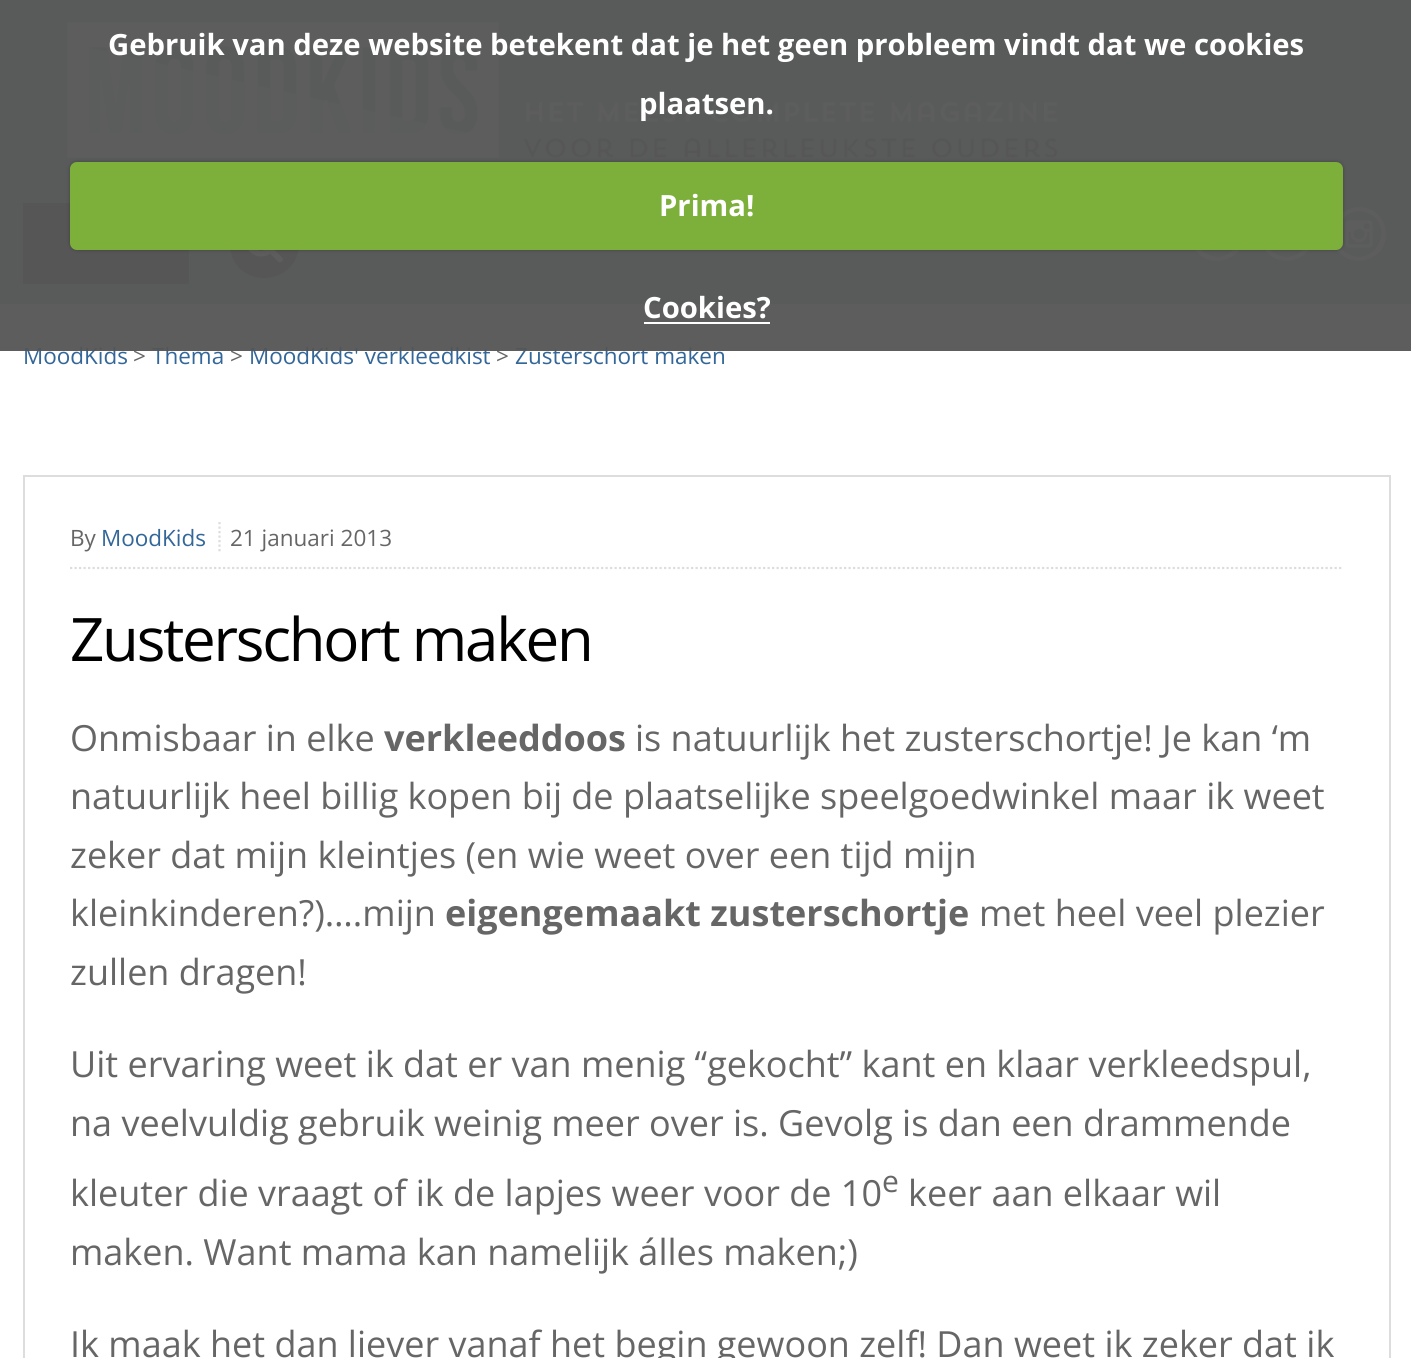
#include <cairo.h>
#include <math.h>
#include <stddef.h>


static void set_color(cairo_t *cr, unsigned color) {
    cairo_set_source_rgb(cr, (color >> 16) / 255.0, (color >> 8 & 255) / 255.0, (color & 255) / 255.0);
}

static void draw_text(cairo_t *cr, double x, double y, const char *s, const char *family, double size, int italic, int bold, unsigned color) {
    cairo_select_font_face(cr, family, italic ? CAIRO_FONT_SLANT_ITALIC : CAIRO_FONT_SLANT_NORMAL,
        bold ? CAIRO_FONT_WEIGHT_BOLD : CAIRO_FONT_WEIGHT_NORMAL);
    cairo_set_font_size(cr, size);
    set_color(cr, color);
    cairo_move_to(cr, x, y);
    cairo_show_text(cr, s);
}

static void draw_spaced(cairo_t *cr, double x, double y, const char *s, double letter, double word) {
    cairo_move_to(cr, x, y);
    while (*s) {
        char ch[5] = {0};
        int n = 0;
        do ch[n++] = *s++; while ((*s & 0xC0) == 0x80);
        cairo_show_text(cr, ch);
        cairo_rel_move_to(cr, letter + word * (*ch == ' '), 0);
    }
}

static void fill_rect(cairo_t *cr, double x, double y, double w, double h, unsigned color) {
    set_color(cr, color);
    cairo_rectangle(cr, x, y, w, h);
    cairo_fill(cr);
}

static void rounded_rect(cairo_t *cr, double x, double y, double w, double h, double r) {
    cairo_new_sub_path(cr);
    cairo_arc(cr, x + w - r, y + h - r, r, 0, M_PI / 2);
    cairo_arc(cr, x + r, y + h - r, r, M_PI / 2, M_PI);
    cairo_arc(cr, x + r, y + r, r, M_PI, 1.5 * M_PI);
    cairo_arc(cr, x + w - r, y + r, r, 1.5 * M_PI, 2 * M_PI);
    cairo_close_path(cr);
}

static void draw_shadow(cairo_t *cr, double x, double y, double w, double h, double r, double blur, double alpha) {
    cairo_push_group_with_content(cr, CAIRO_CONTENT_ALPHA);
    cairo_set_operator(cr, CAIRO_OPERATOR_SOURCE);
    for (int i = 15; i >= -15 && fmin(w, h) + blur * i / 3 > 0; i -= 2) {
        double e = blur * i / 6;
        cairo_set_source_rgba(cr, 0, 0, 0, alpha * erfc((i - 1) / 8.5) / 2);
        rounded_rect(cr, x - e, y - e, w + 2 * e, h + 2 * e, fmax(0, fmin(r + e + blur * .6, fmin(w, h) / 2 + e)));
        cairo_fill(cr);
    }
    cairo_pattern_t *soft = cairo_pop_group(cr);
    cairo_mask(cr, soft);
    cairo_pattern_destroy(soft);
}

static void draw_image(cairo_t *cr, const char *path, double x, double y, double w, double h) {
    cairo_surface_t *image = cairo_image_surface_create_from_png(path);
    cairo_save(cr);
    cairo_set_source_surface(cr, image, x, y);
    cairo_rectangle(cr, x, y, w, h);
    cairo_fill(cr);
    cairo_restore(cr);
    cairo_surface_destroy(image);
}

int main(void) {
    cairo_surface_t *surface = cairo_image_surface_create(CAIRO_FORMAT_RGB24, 1411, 1358);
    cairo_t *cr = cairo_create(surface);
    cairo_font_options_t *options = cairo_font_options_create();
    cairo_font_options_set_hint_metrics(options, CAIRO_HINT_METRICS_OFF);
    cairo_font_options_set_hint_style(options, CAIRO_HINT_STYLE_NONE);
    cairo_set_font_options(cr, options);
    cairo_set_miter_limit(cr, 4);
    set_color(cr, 0xA9D1C7);
    cairo_paint(cr);
    draw_image(cr, "assets/img1.png", 67, 22, 991, 136);
    fill_rect(cr, 23, 203, 166, 81, 0x666666);
    cairo_new_path(cr);
    cairo_move_to(cr, 294, 226);
    cairo_curve_to(cr, 298, 232, 299, 239, 299, 246);
    cairo_curve_to(cr, 297, 280, 251, 290, 234, 261);
    cairo_curve_to(cr, 231, 255, 229, 248, 230, 241);
    cairo_curve_to(cr, 232, 207, 277, 197, 294, 226);
    cairo_close_path(cr);
    cairo_fill(cr);
    draw_image(cr, "assets/img2.png", 248, 250, 35, 13);
    set_color(cr, 0xFFFFFF);
    cairo_new_path(cr);
    cairo_move_to(cr, 1226, 213);
    cairo_curve_to(cr, 1199, 202, 1181, 243, 1209, 255);
    cairo_curve_to(cr, 1236, 266, 1253, 225, 1226, 213);
    cairo_close_path(cr);
    cairo_move_to(cr, 1241, 220);
    cairo_curve_to(cr, 1243, 225, 1245, 230, 1244, 236);
    cairo_curve_to(cr, 1243, 262, 1207, 270, 1194, 248);
    cairo_curve_to(cr, 1191, 243, 1190, 238, 1190, 232);
    cairo_curve_to(cr, 1192, 206, 1227, 198, 1241, 220);
    cairo_close_path(cr);
    cairo_fill(cr);
    cairo_new_path(cr);
    cairo_move_to(cr, 1296, 213);
    cairo_curve_to(cr, 1269, 202, 1251, 243, 1278, 255);
    cairo_curve_to(cr, 1305, 266, 1323, 225, 1296, 213);
    cairo_close_path(cr);
    cairo_move_to(cr, 1310, 220);
    cairo_curve_to(cr, 1313, 225, 1314, 230, 1314, 236);
    cairo_curve_to(cr, 1312, 262, 1277, 270, 1264, 248);
    cairo_curve_to(cr, 1261, 243, 1260, 238, 1260, 232);
    cairo_curve_to(cr, 1262, 206, 1297, 198, 1310, 220);
    cairo_close_path(cr);
    cairo_fill(cr);
    cairo_new_path(cr);
    cairo_move_to(cr, 1368, 213);
    cairo_curve_to(cr, 1341, 202, 1323, 243, 1350, 255);
    cairo_curve_to(cr, 1377, 266, 1395, 225, 1368, 213);
    cairo_close_path(cr);
    cairo_move_to(cr, 1382, 220);
    cairo_curve_to(cr, 1385, 225, 1386, 230, 1386, 236);
    cairo_curve_to(cr, 1384, 262, 1349, 270, 1336, 248);
    cairo_curve_to(cr, 1333, 243, 1332, 238, 1332, 232);
    cairo_curve_to(cr, 1334, 206, 1369, 198, 1382, 220);
    cairo_close_path(cr);
    cairo_fill(cr);
    draw_image(cr, "assets/img3.png", 1345, 220, 28, 28);
    fill_rect(cr, 0, 304, 1411, 1054, 0xFFFFFF);
    draw_text(cr, 23, 364, "MoodKids", "Open Sans", 22.5, 0, 0, 0x336699);
    draw_text(cr, 133, 364, ">", "Open Sans", 22.5, 0, 0, 0x666666);
    draw_text(cr, 152, 364, "Thema", "Open Sans", 22.5, 0, 0, 0x336699);
    draw_text(cr, 230, 364, ">", "Open Sans", 22.5, 0, 0, 0x666666);
    draw_text(cr, 249, 364, "MoodKids' verkleedkist", "Open Sans", 22.5, 0, 0, 0x336699);
    draw_text(cr, 496, 364, ">", "Open Sans", 22.5, 0, 0, 0x666666);
    draw_text(cr, 515, 364, "Zusterschort maken", "Open Sans", 22.5, 0, 0, 0x336699);
    cairo_set_source_rgba(cr, 0.337, 0.337, 0.337, 0.95);
    cairo_rectangle(cr, 0, 0, 1411, 351);
    cairo_fill(cr);
    draw_text(cr, 108, 55, "Gebruik van deze website betekent dat je het geen probleem vindt dat we cookies", "Open Sans", 29.25, 0, 1, 0xFFFFFF);
    draw_text(cr, 639, 114, "plaatsen.", "Open Sans", 29.25, 0, 1, 0xFFFFFF);
    set_color(cr, 0x000000);
    draw_shadow(cr, 70, 162, 1273, 88, 7, 2, 0.25);
    set_color(cr, 0x7DAF3B);
    rounded_rect(cr, 70, 162, 1273, 88, 7);
    cairo_fill(cr);
    draw_text(cr, 659, 216, "Prima!", "Open Sans", 29.25, 0, 1, 0xFFFFFF);
    draw_text(cr, 643, 318, "Cookies?", "Open Sans", 29.25, 0, 1, 0xFFFFFF);
    fill_rect(cr, 644, 322, 126, 2, 0xFFFFFF);
    cairo_rectangle(cr, 24, 476, 1366, 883);
    set_color(cr, 0xDDDDDD);
    cairo_stroke(cr);
    cairo_new_path(cr);
    cairo_move_to(cr, 70, 568);
    cairo_line_to(cr, 1343, 568);
    cairo_set_line_width(cr, 2.2);
    cairo_set_dash(cr, (double[]){2.25, 2.25}, 2, 0);
    cairo_stroke(cr);
    draw_text(cr, 70, 546, "By", "Open Sans", 22.5, 0, 0, 0x666666);
    draw_text(cr, 101, 546, "MoodKids", "Open Sans", 22.5, 0, 0, 0x336699);
    cairo_new_path(cr);
    cairo_move_to(cr, 219.5, 522);
    cairo_line_to(cr, 219.5, 553.5);
    set_color(cr, 0xDDDDDD);
    cairo_stroke(cr);
    draw_text(cr, 230, 546, "21 januari 2013", "Open Sans", 22.5, 0, 0, 0x666666);
    cairo_set_font_size(cr, 60);
    set_color(cr, 0x000000);
    draw_spaced(cr, 70, 661, "Zusterschort maken", -2.25, 0);
    draw_text(cr, 70, 751, "Onmisbaar in elke", "Open Sans", 36, 0, 0, 0x666666);
    draw_text(cr, 384, 751, "verkleeddoos", "Open Sans", 36, 0, 1, 0x666666);
    draw_text(cr, 635, 751, "is natuurlijk het zusterschortje! Je kan ‘m", "Open Sans", 36, 0, 0, 0x666666);
    draw_text(cr, 70, 809, "natuurlijk heel billig kopen bij de plaatselijke speelgoedwinkel maar ik weet", "Open Sans", 36, 0, 0, 0x666666);
    draw_text(cr, 70, 868, "zeker dat mijn kleintjes (en wie weet over een tijd mijn", "Open Sans", 36, 0, 0, 0x666666);
    draw_text(cr, 70, 926, "kleinkinderen?)….mijn", "Open Sans", 36, 0, 0, 0x666666);
    draw_text(cr, 445, 926, "eigengemaakt zusterschortje", "Open Sans", 36, 0, 1, 0x666666);
    draw_text(cr, 979, 926, "met heel veel plezier", "Open Sans", 36, 0, 0, 0x666666);
    draw_text(cr, 70, 985, "zullen dragen!", "Open Sans", 36, 0, 0, 0x666666);
    draw_text(cr, 70, 1077, "Uit ervaring weet ik dat er van menig “gekocht” kant en klaar verkleedspul,", "Open Sans", 36, 0, 0, 0x666666);
    draw_text(cr, 70, 1136, "na veelvuldig gebruik weinig meer over is. Gevolg is dan een drammende", "Open Sans", 36, 0, 0, 0x666666);
    draw_text(cr, 70, 1206, "kleuter die vraagt of ik de lapjes weer voor de 10", "Open Sans", 36, 0, 0, 0x666666);
    draw_text(cr, 882, 1192, "e", "Open Sans", 30, 0, 0, 0x666666);
    draw_text(cr, 908, 1206, "keer aan elkaar wil", "Open Sans", 36, 0, 0, 0x666666);
    draw_text(cr, 70, 1265, "maken. Want mama kan namelijk álles maken;)", "Open Sans", 36, 0, 0, 0x666666);
    draw_text(cr, 70, 1357, "Ik maak het dan liever vanaf het begin gewoon zelf! Dan weet ik zeker dat ik", "Open Sans", 36, 0, 0, 0x666666);
    cairo_surface_write_to_png(surface, "output.png");
    cairo_font_options_destroy(options);
    cairo_destroy(cr);
    cairo_surface_destroy(surface);
    return 0;
}
